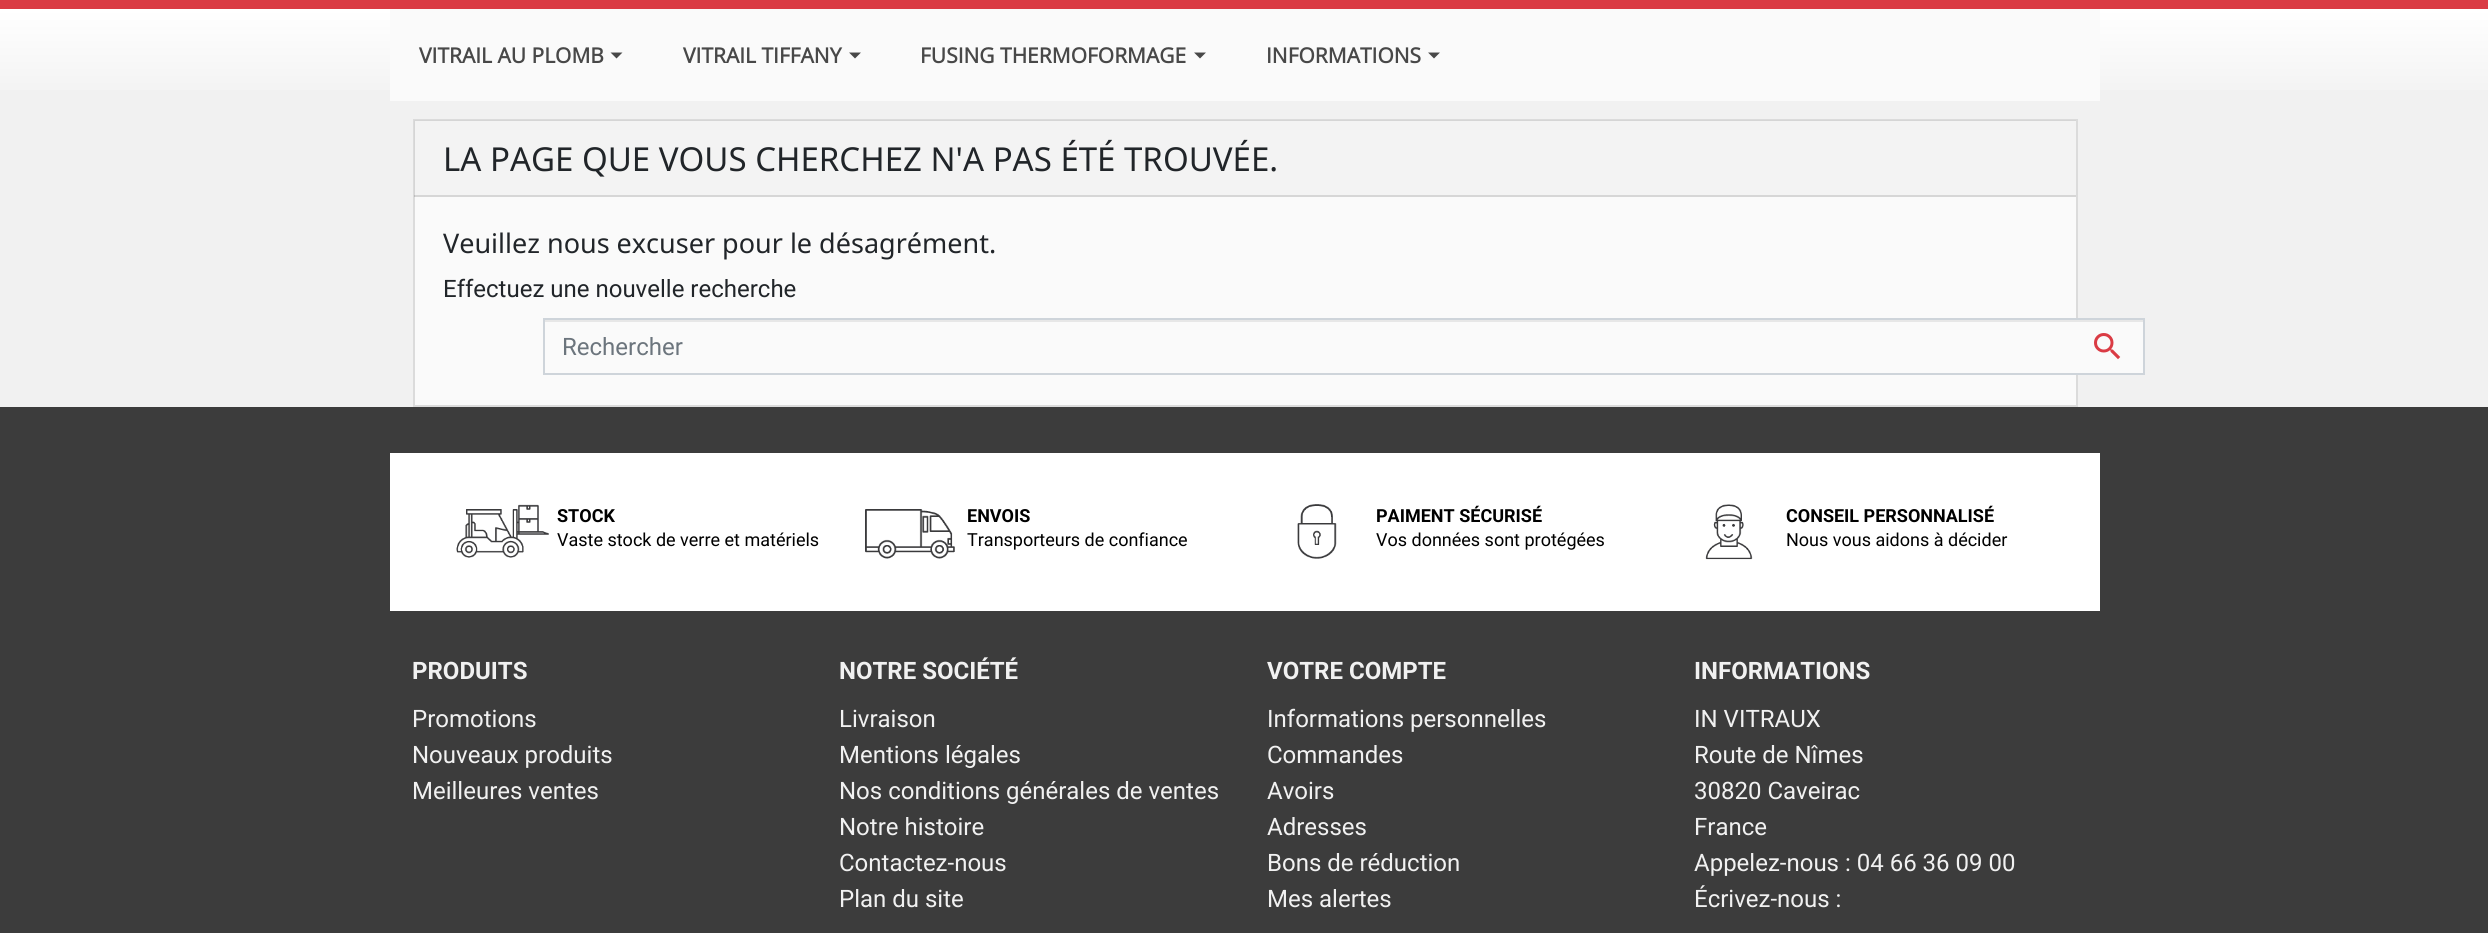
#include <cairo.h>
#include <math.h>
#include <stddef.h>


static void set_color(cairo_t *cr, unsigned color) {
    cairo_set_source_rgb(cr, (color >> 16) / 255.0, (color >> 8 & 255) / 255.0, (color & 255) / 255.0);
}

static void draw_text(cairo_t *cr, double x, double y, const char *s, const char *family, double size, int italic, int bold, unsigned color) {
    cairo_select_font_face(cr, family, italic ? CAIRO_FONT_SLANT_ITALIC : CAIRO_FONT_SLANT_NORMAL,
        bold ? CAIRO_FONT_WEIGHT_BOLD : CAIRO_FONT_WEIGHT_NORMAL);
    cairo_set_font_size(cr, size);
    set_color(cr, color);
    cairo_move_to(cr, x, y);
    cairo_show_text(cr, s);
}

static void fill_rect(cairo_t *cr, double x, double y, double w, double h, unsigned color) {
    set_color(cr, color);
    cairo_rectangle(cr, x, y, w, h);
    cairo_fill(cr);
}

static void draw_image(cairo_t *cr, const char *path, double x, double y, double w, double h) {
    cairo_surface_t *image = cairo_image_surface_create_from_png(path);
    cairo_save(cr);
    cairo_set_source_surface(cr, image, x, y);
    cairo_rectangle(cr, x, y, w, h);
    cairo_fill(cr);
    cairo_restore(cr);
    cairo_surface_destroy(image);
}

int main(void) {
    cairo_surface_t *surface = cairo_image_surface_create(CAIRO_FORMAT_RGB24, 2488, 933);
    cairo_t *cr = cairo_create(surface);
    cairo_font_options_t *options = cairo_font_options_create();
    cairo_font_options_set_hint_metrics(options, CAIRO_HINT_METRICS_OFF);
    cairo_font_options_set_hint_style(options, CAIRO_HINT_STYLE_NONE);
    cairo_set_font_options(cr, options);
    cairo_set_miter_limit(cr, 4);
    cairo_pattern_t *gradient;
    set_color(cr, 0xF1F1F1);
    cairo_paint(cr);
    gradient = cairo_pattern_create_linear(1244, 9, 1244, 101);
    cairo_pattern_add_color_stop_rgba(gradient, 0, 1, 1, 1, 1);
    cairo_pattern_add_color_stop_rgba(gradient, 1, 0.949, 0.949, 0.949, 1);
    cairo_set_source(cr, gradient);
    cairo_pattern_destroy(gradient);
    cairo_rectangle(cr, 0, 9, 2488, 81);
    cairo_fill(cr);
    fill_rect(cr, 0, 0, 2488, 9, 0xDA3B44);
    fill_rect(cr, 390, 9, 1710, 92, 0xFAFAFA);
    draw_text(cr, 419, 63, "VITRAIL AU PLOMB", "Open Sans", 21, 0, 1, 0x484848);
    cairo_new_path(cr);
    cairo_move_to(cr, 610.5, 52.5);
    cairo_line_to(cr, 622.5, 52.5);
    cairo_line_to(cr, 616.5, 58.5);
    cairo_close_path(cr);
    cairo_fill(cr);
    draw_text(cr, 683, 63, "VITRAIL TIFFANY", "Open Sans", 21, 0, 1, 0x484848);
    cairo_new_path(cr);
    cairo_move_to(cr, 849, 52.5);
    cairo_line_to(cr, 861, 52.5);
    cairo_line_to(cr, 855, 58.5);
    cairo_close_path(cr);
    cairo_fill(cr);
    draw_text(cr, 920, 63, "FUSING THERMOFORMAGE", "Open Sans", 21, 0, 1, 0x484848);
    cairo_new_path(cr);
    cairo_move_to(cr, 1194, 52.5);
    cairo_line_to(cr, 1206, 52.5);
    cairo_line_to(cr, 1200, 58.5);
    cairo_close_path(cr);
    cairo_fill(cr);
    draw_text(cr, 1266, 63, "INFORMATIONS", "Open Sans", 21, 0, 1, 0x484848);
    cairo_new_path(cr);
    cairo_move_to(cr, 1428, 52.5);
    cairo_line_to(cr, 1440, 52.5);
    cairo_line_to(cr, 1434, 58.5);
    cairo_close_path(cr);
    cairo_fill(cr);
    set_color(cr, 0xFAFAFA);
    cairo_rectangle(cr, 414, 120, 1663, 286);
    cairo_fill_preserve(cr);
    set_color(cr, 0xDBDBDB);
    cairo_stroke(cr);
    cairo_set_source_rgba(cr, 0, 0, 0, 0.03);
    cairo_rectangle(cr, 414, 120, 1662, 77);
    cairo_fill(cr);
    cairo_set_source_rgba(cr, 0, 0, 0, 0.12);
    cairo_rectangle(cr, 414, 195, 1662, 2);
    cairo_fill(cr);
    draw_text(cr, 443, 171, "LA PAGE QUE VOUS CHERCHEZ N'A PAS ÉTÉ TROUVÉE.", "Noto Sans", 33, 0, 0, 0x212529);
    draw_text(cr, 443, 253, "Veuillez nous excuser pour le désagrément.", "Noto Sans", 27, 0, 0, 0x212529);
    draw_text(cr, 443, 297, "Effectuez une nouvelle recherche", "Roboto", 24, 0, 0, 0x212529);
    fill_rect(cr, 2076, 322, 67, 51, 0xFAFAFA);
    fill_rect(cr, 545, 320, 1599, 2, 0xE7E7E7);
    cairo_rectangle(cr, 544, 319, 1600, 55);
    set_color(cr, 0xCED4DA);
    cairo_stroke(cr);
    draw_text(cr, 562, 355, "Rechercher", "Roboto", 24, 0, 0, 0x6C757D);
    draw_image(cr, "assets/img1.png", 2094, 333, 27, 27);
    fill_rect(cr, 0, 407, 2488, 526, 0x3C3C3C);
    fill_rect(cr, 390, 453, 1710, 158, 0xFFFFFF);
    draw_image(cr, "assets/img2.png", 456, 504, 93, 54);
    draw_text(cr, 557, 522, "STOCK", "Roboto", 18, 0, 1, 0x000000);
    draw_text(cr, 557, 546, "Vaste stock de verre et matériels", "Roboto", 18, 0, 0, 0x000000);
    draw_image(cr, "assets/img3.png", 865, 509, 90, 50);
    draw_text(cr, 967, 522, "ENVOIS", "Roboto", 18, 0, 1, 0x000000);
    draw_text(cr, 967, 546, "Transporteurs de confiance", "Roboto", 18, 0, 0, 0x000000);
    draw_image(cr, "assets/img4.png", 1297, 504, 40, 55);
    draw_text(cr, 1376, 522, "PAIMENT SÉCURISÉ", "Roboto", 18, 0, 1, 0x000000);
    draw_text(cr, 1376, 546, "Vos données sont protégées", "Roboto", 18, 0, 0, 0x000000);
    draw_image(cr, "assets/img5.png", 1705, 504, 48, 56);
    draw_text(cr, 1786, 522, "CONSEIL PERSONNALISÉ", "Roboto", 18, 0, 1, 0x000000);
    draw_text(cr, 1786, 546, "Nous vous aidons à décider", "Roboto", 18, 0, 0, 0x000000);
    draw_text(cr, 412, 679, "PRODUITS", "Roboto", 24, 0, 1, 0xF1F1F1);
    draw_text(cr, 412, 727, "Promotions", "Roboto", 24, 0, 0, 0xF1F1F1);
    draw_text(cr, 412, 763, "Nouveaux produits", "Roboto", 24, 0, 0, 0xF1F1F1);
    draw_text(cr, 412, 799, "Meilleures ventes", "Roboto", 24, 0, 0, 0xF1F1F1);
    draw_text(cr, 839, 679, "NOTRE SOCIÉTÉ", "Roboto", 24, 0, 1, 0xF1F1F1);
    draw_text(cr, 839, 727, "Livraison", "Roboto", 24, 0, 0, 0xF1F1F1);
    draw_text(cr, 839, 763, "Mentions légales", "Roboto", 24, 0, 0, 0xF1F1F1);
    draw_text(cr, 839, 799, "Nos conditions générales de ventes", "Roboto", 24, 0, 0, 0xF1F1F1);
    draw_text(cr, 839, 835, "Notre histoire", "Roboto", 24, 0, 0, 0xF1F1F1);
    draw_text(cr, 839, 871, "Contactez-nous", "Roboto", 24, 0, 0, 0xF1F1F1);
    draw_text(cr, 839, 907, "Plan du site", "Roboto", 24, 0, 0, 0xF1F1F1);
    draw_text(cr, 1267, 679, "VOTRE COMPTE", "Roboto", 24, 0, 1, 0xF1F1F1);
    draw_text(cr, 1267, 727, "Informations personnelles", "Roboto", 24, 0, 0, 0xF1F1F1);
    draw_text(cr, 1267, 763, "Commandes", "Roboto", 24, 0, 0, 0xF1F1F1);
    draw_text(cr, 1267, 799, "Avoirs", "Roboto", 24, 0, 0, 0xF1F1F1);
    draw_text(cr, 1267, 835, "Adresses", "Roboto", 24, 0, 0, 0xF1F1F1);
    draw_text(cr, 1267, 871, "Bons de réduction", "Roboto", 24, 0, 0, 0xF1F1F1);
    draw_text(cr, 1267, 907, "Mes alertes", "Roboto", 24, 0, 0, 0xF1F1F1);
    draw_text(cr, 1694, 679, "INFORMATIONS", "Roboto", 24, 0, 1, 0xF1F1F1);
    draw_text(cr, 1694, 727, "IN VITRAUX", "Roboto", 24, 0, 0, 0xF1F1F1);
    draw_text(cr, 1694, 763, "Route de Nîmes", "Roboto", 24, 0, 0, 0xF1F1F1);
    draw_text(cr, 1694, 799, "30820 Caveirac", "Roboto", 24, 0, 0, 0xF1F1F1);
    draw_text(cr, 1694, 835, "France", "Roboto", 24, 0, 0, 0xF1F1F1);
    draw_text(cr, 1694, 871, "Appelez-nous : 04 66 36 09 00", "Roboto", 24, 0, 0, 0xF1F1F1);
    draw_text(cr, 1694, 907, "Écrivez-nous :", "Roboto", 24, 0, 0, 0xF1F1F1);
    cairo_surface_write_to_png(surface, "output.png");
    cairo_font_options_destroy(options);
    cairo_destroy(cr);
    cairo_surface_destroy(surface);
    return 0;
}
